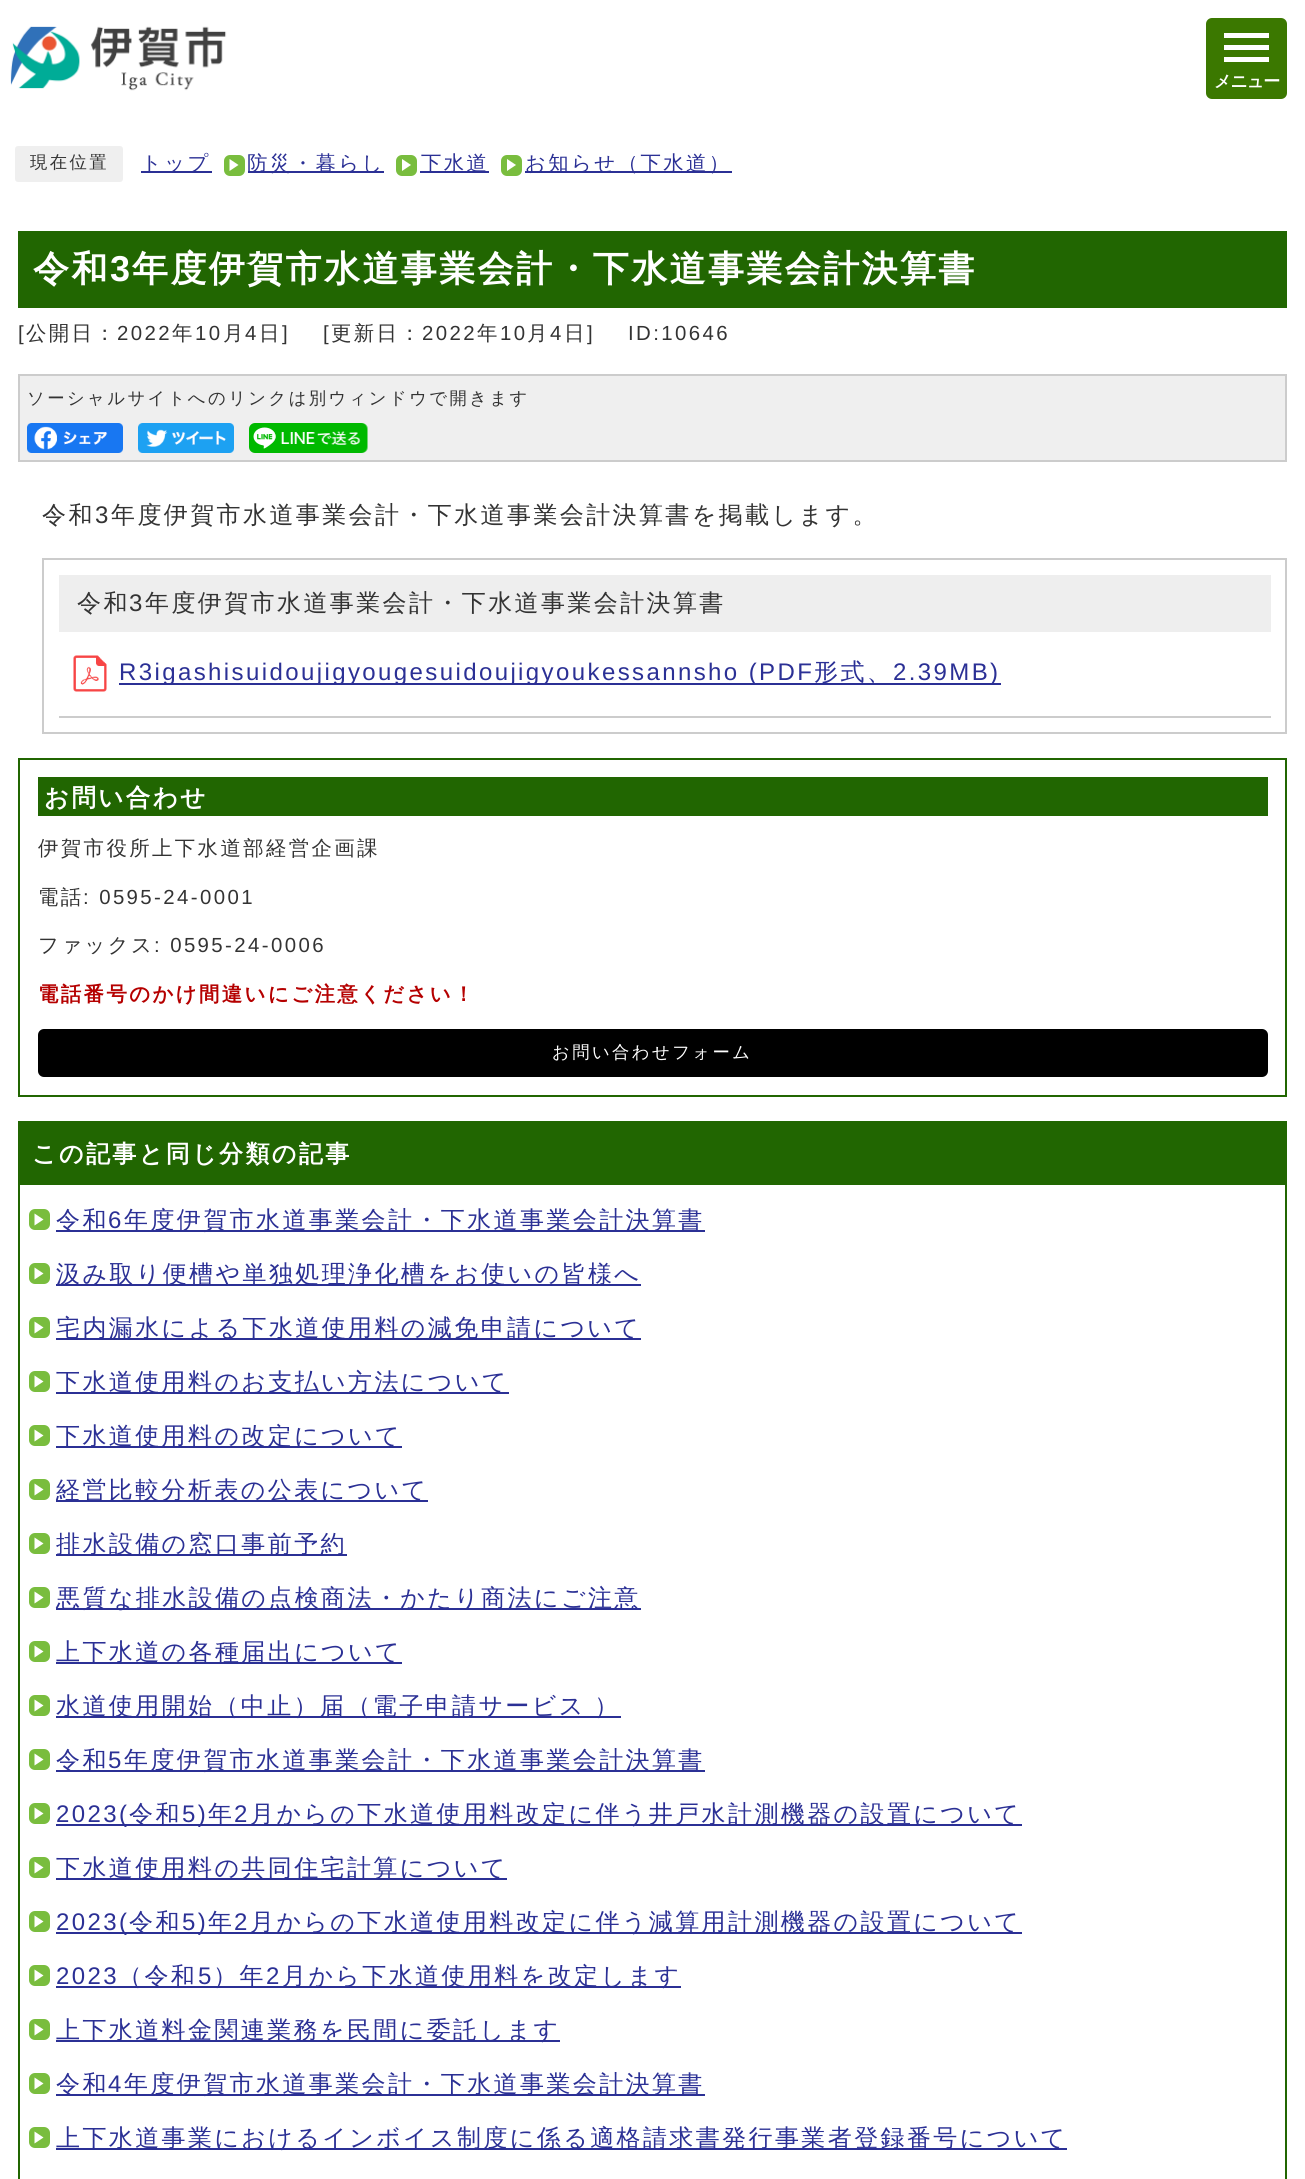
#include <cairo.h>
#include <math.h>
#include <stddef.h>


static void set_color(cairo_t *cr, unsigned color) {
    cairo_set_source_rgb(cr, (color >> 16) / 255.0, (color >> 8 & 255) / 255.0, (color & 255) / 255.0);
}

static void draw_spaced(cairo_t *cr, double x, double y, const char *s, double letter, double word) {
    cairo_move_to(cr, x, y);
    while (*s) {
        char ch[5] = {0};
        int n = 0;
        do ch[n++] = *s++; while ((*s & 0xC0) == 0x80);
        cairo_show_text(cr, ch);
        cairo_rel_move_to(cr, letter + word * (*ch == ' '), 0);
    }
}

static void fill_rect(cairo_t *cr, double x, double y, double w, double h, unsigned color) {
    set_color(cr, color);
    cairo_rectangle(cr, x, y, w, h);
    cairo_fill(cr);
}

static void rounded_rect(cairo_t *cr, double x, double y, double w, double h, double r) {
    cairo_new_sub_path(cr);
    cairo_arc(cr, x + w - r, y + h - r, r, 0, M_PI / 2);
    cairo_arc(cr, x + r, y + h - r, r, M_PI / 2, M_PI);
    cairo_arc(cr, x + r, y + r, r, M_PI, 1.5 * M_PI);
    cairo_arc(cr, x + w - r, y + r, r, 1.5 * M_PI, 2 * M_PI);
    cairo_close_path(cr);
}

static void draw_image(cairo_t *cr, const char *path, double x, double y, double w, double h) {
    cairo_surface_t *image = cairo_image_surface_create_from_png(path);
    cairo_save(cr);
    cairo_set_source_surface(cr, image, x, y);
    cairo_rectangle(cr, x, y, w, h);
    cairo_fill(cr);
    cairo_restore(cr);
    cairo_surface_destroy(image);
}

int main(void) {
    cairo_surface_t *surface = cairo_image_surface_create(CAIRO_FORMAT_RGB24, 1305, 2179);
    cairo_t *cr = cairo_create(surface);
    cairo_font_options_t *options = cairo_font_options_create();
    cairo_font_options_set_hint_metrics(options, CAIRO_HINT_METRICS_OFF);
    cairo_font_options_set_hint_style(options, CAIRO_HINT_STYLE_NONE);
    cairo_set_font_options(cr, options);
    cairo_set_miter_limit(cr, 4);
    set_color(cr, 0xFFFFFF);
    cairo_paint(cr);
    draw_image(cr, "assets/img1.png", 10, 26, 217, 65);
    set_color(cr, 0x3B7800);
    rounded_rect(cr, 1206, 18, 81, 81, 6);
    cairo_fill(cr);
    fill_rect(cr, 1224, 33, 45, 5, 0xFFFFFF);
    fill_rect(cr, 1224, 45, 45, 5, 0xFFFFFF);
    fill_rect(cr, 1224, 57, 45, 5, 0xFFFFFF);
    cairo_select_font_face(cr, "WenQuanYi Zen Hei", CAIRO_FONT_SLANT_NORMAL, CAIRO_FONT_WEIGHT_BOLD);
    cairo_set_font_size(cr, 17);
    draw_spaced(cr, 1214, 87, "メニュー", -1, 0);
    set_color(cr, 0xEFEFEF);
    rounded_rect(cr, 15, 146, 108, 36, 3);
    cairo_fill(cr);
    cairo_select_font_face(cr, "WenQuanYi Zen Hei Medium", CAIRO_FONT_SLANT_NORMAL, CAIRO_FONT_WEIGHT_NORMAL);
    cairo_set_font_size(cr, 17.35);
    set_color(cr, 0x333333);
    draw_spaced(cr, 30, 168, "現在位置", 2.4, 0);
    fill_rect(cr, 141, 171, 71, 2, 0x2B3095);
    cairo_set_font_size(cr, 20.4);
    draw_spaced(cr, 141, 170, "トップ", 2.4, 0);
    set_color(cr, 0x79BD3E);
    rounded_rect(cr, 224, 155, 21, 21, 6);
    cairo_fill(cr);
    set_color(cr, 0xFFFFFF);
    cairo_new_path(cr);
    cairo_move_to(cr, 229.5, 171);
    cairo_line_to(cr, 229.5, 159);
    cairo_line_to(cr, 238.5, 165);
    cairo_close_path(cr);
    cairo_fill(cr);
    fill_rect(cr, 248, 171, 136, 2, 0x2B3095);
    draw_spaced(cr, 247, 170, "防災・暮らし", 2.4, 0);
    set_color(cr, 0x79BD3E);
    rounded_rect(cr, 396, 155, 21, 21, 6);
    cairo_fill(cr);
    set_color(cr, 0xFFFFFF);
    cairo_new_path(cr);
    cairo_move_to(cr, 402, 171);
    cairo_line_to(cr, 402, 159);
    cairo_line_to(cr, 411, 165);
    cairo_close_path(cr);
    cairo_fill(cr);
    fill_rect(cr, 420, 171, 69, 2, 0x2B3095);
    draw_spaced(cr, 421, 170, "下水道", 2.4, 0);
    set_color(cr, 0x79BD3E);
    rounded_rect(cr, 501, 155, 21, 21, 6);
    cairo_fill(cr);
    set_color(cr, 0xFFFFFF);
    cairo_new_path(cr);
    cairo_move_to(cr, 507, 171);
    cairo_line_to(cr, 507, 159);
    cairo_line_to(cr, 516, 165);
    cairo_close_path(cr);
    cairo_fill(cr);
    fill_rect(cr, 525, 171, 207, 2, 0x2B3095);
    draw_spaced(cr, 525, 170, "お知らせ（下水道）", 2.4, 0);
    fill_rect(cr, 18, 231, 1269, 77, 0x216601);
    cairo_select_font_face(cr, "WenQuanYi Zen Hei", CAIRO_FONT_SLANT_NORMAL, CAIRO_FONT_WEIGHT_BOLD);
    cairo_set_font_size(cr, 36);
    set_color(cr, 0xFFFFFF);
    draw_spaced(cr, 33, 281, "令和", 2.4, 0);
    cairo_select_font_face(cr, "Liberation Sans", CAIRO_FONT_SLANT_NORMAL, CAIRO_FONT_WEIGHT_BOLD);
    draw_spaced(cr, 110, 281, "3", 2.4, 0);
    cairo_select_font_face(cr, "WenQuanYi Zen Hei", CAIRO_FONT_SLANT_NORMAL, CAIRO_FONT_WEIGHT_BOLD);
    draw_spaced(cr, 132, 281, "年度伊賀市水道事業会計・下水道事業会計決算書", 2.4, 0);
    cairo_select_font_face(cr, "Liberation Sans", CAIRO_FONT_SLANT_NORMAL, CAIRO_FONT_WEIGHT_NORMAL);
    cairo_set_font_size(cr, 20.4);
    set_color(cr, 0x333333);
    draw_spaced(cr, 18, 340, "[", 2.4, 0);
    cairo_select_font_face(cr, "WenQuanYi Zen Hei Medium", CAIRO_FONT_SLANT_NORMAL, CAIRO_FONT_WEIGHT_NORMAL);
    draw_spaced(cr, 26, 340, "公開日：", 2.4, 0);
    cairo_select_font_face(cr, "Liberation Sans", CAIRO_FONT_SLANT_NORMAL, CAIRO_FONT_WEIGHT_NORMAL);
    draw_spaced(cr, 117, 340, "2022", 2.4, 0);
    cairo_select_font_face(cr, "WenQuanYi Zen Hei Medium", CAIRO_FONT_SLANT_NORMAL, CAIRO_FONT_WEIGHT_NORMAL);
    draw_spaced(cr, 172, 340, "年", 2.4, 0);
    cairo_select_font_face(cr, "Liberation Sans", CAIRO_FONT_SLANT_NORMAL, CAIRO_FONT_WEIGHT_NORMAL);
    draw_spaced(cr, 195, 340, "10", 2.4, 0);
    cairo_select_font_face(cr, "WenQuanYi Zen Hei Medium", CAIRO_FONT_SLANT_NORMAL, CAIRO_FONT_WEIGHT_NORMAL);
    draw_spaced(cr, 223, 340, "月", 2.4, 0);
    cairo_select_font_face(cr, "Liberation Sans", CAIRO_FONT_SLANT_NORMAL, CAIRO_FONT_WEIGHT_NORMAL);
    draw_spaced(cr, 245, 340, "4", 2.4, 0);
    cairo_select_font_face(cr, "WenQuanYi Zen Hei Medium", CAIRO_FONT_SLANT_NORMAL, CAIRO_FONT_WEIGHT_NORMAL);
    draw_spaced(cr, 259, 340, "日", 2.4, 0);
    cairo_select_font_face(cr, "Liberation Sans", CAIRO_FONT_SLANT_NORMAL, CAIRO_FONT_WEIGHT_NORMAL);
    draw_spaced(cr, 282, 340, "]", 2.4, 0);
    draw_spaced(cr, 323, 340, "[", 2.4, 0);
    cairo_select_font_face(cr, "WenQuanYi Zen Hei Medium", CAIRO_FONT_SLANT_NORMAL, CAIRO_FONT_WEIGHT_NORMAL);
    draw_spaced(cr, 331, 340, "更新日：", 2.4, 0);
    cairo_select_font_face(cr, "Liberation Sans", CAIRO_FONT_SLANT_NORMAL, CAIRO_FONT_WEIGHT_NORMAL);
    draw_spaced(cr, 422, 340, "2022", 2.4, 0);
    cairo_select_font_face(cr, "WenQuanYi Zen Hei Medium", CAIRO_FONT_SLANT_NORMAL, CAIRO_FONT_WEIGHT_NORMAL);
    draw_spaced(cr, 477, 340, "年", 2.4, 0);
    cairo_select_font_face(cr, "Liberation Sans", CAIRO_FONT_SLANT_NORMAL, CAIRO_FONT_WEIGHT_NORMAL);
    draw_spaced(cr, 500, 340, "10", 2.4, 0);
    cairo_select_font_face(cr, "WenQuanYi Zen Hei Medium", CAIRO_FONT_SLANT_NORMAL, CAIRO_FONT_WEIGHT_NORMAL);
    draw_spaced(cr, 527, 340, "月", 2.4, 0);
    cairo_select_font_face(cr, "Liberation Sans", CAIRO_FONT_SLANT_NORMAL, CAIRO_FONT_WEIGHT_NORMAL);
    draw_spaced(cr, 550, 340, "4", 2.4, 0);
    cairo_select_font_face(cr, "WenQuanYi Zen Hei Medium", CAIRO_FONT_SLANT_NORMAL, CAIRO_FONT_WEIGHT_NORMAL);
    draw_spaced(cr, 564, 340, "日", 2.4, 0);
    cairo_select_font_face(cr, "Liberation Sans", CAIRO_FONT_SLANT_NORMAL, CAIRO_FONT_WEIGHT_NORMAL);
    draw_spaced(cr, 587, 340, "]", 2.4, 0);
    draw_spaced(cr, 628, 340, "ID:10646", 2.4, 0);
    set_color(cr, 0xEFEFEF);
    cairo_rectangle(cr, 19, 375, 1267, 86);
    cairo_fill_preserve(cr);
    set_color(cr, 0xCCCCCC);
    cairo_stroke(cr);
    cairo_select_font_face(cr, "WenQuanYi Zen Hei Medium", CAIRO_FONT_SLANT_NORMAL, CAIRO_FONT_WEIGHT_NORMAL);
    cairo_set_font_size(cr, 17.35);
    set_color(cr, 0x333333);
    draw_spaced(cr, 27, 404, "ソーシャルサイトへのリンクは別ウィンドウで開きます", 2.4, 0);
    draw_image(cr, "assets/img2.png", 27, 423, 96, 30);
    draw_image(cr, "assets/img3.png", 138, 423, 96, 30);
    draw_image(cr, "assets/img4.png", 249, 423, 119, 30);
    cairo_set_font_size(cr, 24);
    draw_spaced(cr, 42, 523, "令和", 2.4, 0);
    cairo_select_font_face(cr, "Liberation Sans", CAIRO_FONT_SLANT_NORMAL, CAIRO_FONT_WEIGHT_NORMAL);
    draw_spaced(cr, 95, 523, "3", 2.4, 0);
    cairo_select_font_face(cr, "WenQuanYi Zen Hei Medium", CAIRO_FONT_SLANT_NORMAL, CAIRO_FONT_WEIGHT_NORMAL);
    draw_spaced(cr, 111, 523, "年度伊賀市水道事業会計・下水道事業会計決算書を掲載します。", 2.4, 0);
    cairo_rectangle(cr, 43, 559, 1243, 174);
    set_color(cr, 0xCCCCCC);
    cairo_stroke(cr);
    fill_rect(cr, 59, 575, 1212, 57, 0xEEEEEE);
    set_color(cr, 0x333333);
    draw_spaced(cr, 77, 611, "令和", 2.4, 0);
    cairo_select_font_face(cr, "Liberation Sans", CAIRO_FONT_SLANT_NORMAL, CAIRO_FONT_WEIGHT_NORMAL);
    draw_spaced(cr, 129, 611, "3", 2.4, 0);
    cairo_select_font_face(cr, "WenQuanYi Zen Hei Medium", CAIRO_FONT_SLANT_NORMAL, CAIRO_FONT_WEIGHT_NORMAL);
    draw_spaced(cr, 145, 611, "年度伊賀市水道事業会計・下水道事業会計決算書", 2.4, 0);
    fill_rect(cr, 59, 716, 1212, 2, 0xCCCCCC);
    draw_image(cr, "assets/img5.png", 73, 655, 34, 37);
    fill_rect(cr, 119, 683, 882, 2, 0x2B3095);
    cairo_select_font_face(cr, "Liberation Sans", CAIRO_FONT_SLANT_NORMAL, CAIRO_FONT_WEIGHT_NORMAL);
    draw_spaced(cr, 119, 680, "R3igashisuidoujigyougesuidoujigyoukessannsho (PDF", 2.4, 0);
    cairo_select_font_face(cr, "WenQuanYi Zen Hei Medium", CAIRO_FONT_SLANT_NORMAL, CAIRO_FONT_WEIGHT_NORMAL);
    draw_spaced(cr, 814, 680, "形式、", 2.4, 0);
    cairo_select_font_face(cr, "Liberation Sans", CAIRO_FONT_SLANT_NORMAL, CAIRO_FONT_WEIGHT_NORMAL);
    draw_spaced(cr, 893, 680, "2.39MB)", 2.4, 0);
    cairo_rectangle(cr, 19, 759, 1267, 337);
    set_color(cr, 0x216601);
    cairo_stroke(cr);
    fill_rect(cr, 38, 777, 1230, 39, 0x216601);
    cairo_select_font_face(cr, "WenQuanYi Zen Hei", CAIRO_FONT_SLANT_NORMAL, CAIRO_FONT_WEIGHT_BOLD);
    cairo_set_font_size(cr, 24.5);
    set_color(cr, 0xFFFFFF);
    draw_spaced(cr, 44, 806, "お問い合わせ", 2.4, 0);
    cairo_select_font_face(cr, "WenQuanYi Zen Hei Medium", CAIRO_FONT_SLANT_NORMAL, CAIRO_FONT_WEIGHT_NORMAL);
    cairo_set_font_size(cr, 20.4);
    set_color(cr, 0x333333);
    draw_spaced(cr, 38, 855, "伊賀市役所上下水道部経営企画課", 2.4, 0);
    draw_spaced(cr, 38, 904, "電話", 2.4, 0);
    cairo_select_font_face(cr, "Liberation Sans", CAIRO_FONT_SLANT_NORMAL, CAIRO_FONT_WEIGHT_NORMAL);
    draw_spaced(cr, 83, 904, ": 0595-24-0001", 2.4, 0);
    cairo_select_font_face(cr, "WenQuanYi Zen Hei Medium", CAIRO_FONT_SLANT_NORMAL, CAIRO_FONT_WEIGHT_NORMAL);
    draw_spaced(cr, 38, 952, "ファックス", 2.4, 0);
    cairo_select_font_face(cr, "Liberation Sans", CAIRO_FONT_SLANT_NORMAL, CAIRO_FONT_WEIGHT_NORMAL);
    draw_spaced(cr, 154, 952, ": 0595-24-0006", 2.4, 0);
    cairo_select_font_face(cr, "WenQuanYi Zen Hei", CAIRO_FONT_SLANT_NORMAL, CAIRO_FONT_WEIGHT_BOLD);
    set_color(cr, 0xB50000);
    draw_spaced(cr, 38, 1001, "電話番号のかけ間違いにご注意ください！", 2.4, 0);
    set_color(cr, 0x000000);
    rounded_rect(cr, 38, 1029, 1230, 48, 6);
    cairo_fill(cr);
    cairo_select_font_face(cr, "WenQuanYi Zen Hei Medium", CAIRO_FONT_SLANT_NORMAL, CAIRO_FONT_WEIGHT_NORMAL);
    cairo_set_font_size(cr, 17.35);
    set_color(cr, 0xFFFFFF);
    draw_spaced(cr, 552, 1058, "お問い合わせフォーム", 2.4, 0);
    cairo_rectangle(cr, 19, 1122, 1267, 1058);
    set_color(cr, 0x216601);
    cairo_stroke(cr);
    fill_rect(cr, 20, 1123, 1265, 62, 0x216601);
    cairo_select_font_face(cr, "WenQuanYi Zen Hei", CAIRO_FONT_SLANT_NORMAL, CAIRO_FONT_WEIGHT_BOLD);
    cairo_set_font_size(cr, 24);
    set_color(cr, 0xFFFFFF);
    draw_spaced(cr, 32, 1162, "この記事と同じ分類の記事", 2.4, 0);
    set_color(cr, 0x79BD3E);
    rounded_rect(cr, 29, 1209, 21, 21, 6);
    cairo_fill(cr);
    fill_rect(cr, 56, 1230, 649, 2, 0x2B3095);
    cairo_select_font_face(cr, "WenQuanYi Zen Hei Medium", CAIRO_FONT_SLANT_NORMAL, CAIRO_FONT_WEIGHT_NORMAL);
    draw_spaced(cr, 56, 1228, "令和", 2.4, 0);
    cairo_select_font_face(cr, "Liberation Sans", CAIRO_FONT_SLANT_NORMAL, CAIRO_FONT_WEIGHT_NORMAL);
    draw_spaced(cr, 108, 1228, "6", 2.4, 0);
    cairo_select_font_face(cr, "WenQuanYi Zen Hei Medium", CAIRO_FONT_SLANT_NORMAL, CAIRO_FONT_WEIGHT_NORMAL);
    draw_spaced(cr, 124, 1228, "年度伊賀市水道事業会計・下水道事業会計決算書", 2.4, 0);
    set_color(cr, 0xFFFFFF);
    cairo_new_path(cr);
    cairo_move_to(cr, 34.5, 1225.5);
    cairo_line_to(cr, 34.5, 1213.5);
    cairo_line_to(cr, 43.5, 1219.5);
    cairo_close_path(cr);
    cairo_fill(cr);
    set_color(cr, 0x79BD3E);
    rounded_rect(cr, 29, 1263, 21, 21, 6);
    cairo_fill(cr);
    fill_rect(cr, 56, 1284, 585, 2, 0x2B3095);
    draw_spaced(cr, 56, 1282, "汲み取り便槽や単独処理浄化槽をお使いの皆様へ", 2.4, 0);
    set_color(cr, 0xFFFFFF);
    cairo_new_path(cr);
    cairo_move_to(cr, 34.5, 1279.5);
    cairo_line_to(cr, 34.5, 1267.5);
    cairo_line_to(cr, 43.5, 1273.5);
    cairo_close_path(cr);
    cairo_fill(cr);
    set_color(cr, 0x79BD3E);
    rounded_rect(cr, 29, 1317, 21, 21, 6);
    cairo_fill(cr);
    fill_rect(cr, 56, 1338, 585, 2, 0x2B3095);
    draw_spaced(cr, 56, 1336, "宅内漏水による下水道使用料の減免申請について", 2.4, 0);
    set_color(cr, 0xFFFFFF);
    cairo_new_path(cr);
    cairo_move_to(cr, 34.5, 1333.5);
    cairo_line_to(cr, 34.5, 1321.5);
    cairo_line_to(cr, 43.5, 1327.5);
    cairo_close_path(cr);
    cairo_fill(cr);
    set_color(cr, 0x79BD3E);
    rounded_rect(cr, 29, 1371, 21, 21, 6);
    cairo_fill(cr);
    fill_rect(cr, 56, 1392, 453, 2, 0x2B3095);
    draw_spaced(cr, 56, 1390, "下水道使用料のお支払い方法について", 2.4, 0);
    set_color(cr, 0xFFFFFF);
    cairo_new_path(cr);
    cairo_move_to(cr, 34.5, 1387.5);
    cairo_line_to(cr, 34.5, 1375.5);
    cairo_line_to(cr, 43.5, 1381.5);
    cairo_close_path(cr);
    cairo_fill(cr);
    set_color(cr, 0x79BD3E);
    rounded_rect(cr, 29, 1425, 21, 21, 6);
    cairo_fill(cr);
    fill_rect(cr, 56, 1446, 346, 2, 0x2B3095);
    draw_spaced(cr, 56, 1444, "下水道使用料の改定について", 2.4, 0);
    set_color(cr, 0xFFFFFF);
    cairo_new_path(cr);
    cairo_move_to(cr, 34.5, 1441.5);
    cairo_line_to(cr, 34.5, 1429.5);
    cairo_line_to(cr, 43.5, 1435.5);
    cairo_close_path(cr);
    cairo_fill(cr);
    set_color(cr, 0x79BD3E);
    rounded_rect(cr, 29, 1479, 21, 21, 6);
    cairo_fill(cr);
    fill_rect(cr, 56, 1500, 372, 2, 0x2B3095);
    draw_spaced(cr, 56, 1498, "経営比較分析表の公表について", 2.4, 0);
    set_color(cr, 0xFFFFFF);
    cairo_new_path(cr);
    cairo_move_to(cr, 34.5, 1495.5);
    cairo_line_to(cr, 34.5, 1483.5);
    cairo_line_to(cr, 43.5, 1489.5);
    cairo_close_path(cr);
    cairo_fill(cr);
    set_color(cr, 0x79BD3E);
    rounded_rect(cr, 29, 1533, 21, 21, 6);
    cairo_fill(cr);
    fill_rect(cr, 56, 1554, 291, 2, 0x2B3095);
    draw_spaced(cr, 56, 1552, "排水設備の窓口事前予約", 2.4, 0);
    set_color(cr, 0xFFFFFF);
    cairo_new_path(cr);
    cairo_move_to(cr, 34.5, 1549.5);
    cairo_line_to(cr, 34.5, 1537.5);
    cairo_line_to(cr, 43.5, 1543.5);
    cairo_close_path(cr);
    cairo_fill(cr);
    set_color(cr, 0x79BD3E);
    rounded_rect(cr, 29, 1587, 21, 21, 6);
    cairo_fill(cr);
    fill_rect(cr, 56, 1608, 585, 2, 0x2B3095);
    draw_spaced(cr, 56, 1606, "悪質な排水設備の点検商法・かたり商法にご注意", 2.4, 0);
    set_color(cr, 0xFFFFFF);
    cairo_new_path(cr);
    cairo_move_to(cr, 34.5, 1603.5);
    cairo_line_to(cr, 34.5, 1591.5);
    cairo_line_to(cr, 43.5, 1597.5);
    cairo_close_path(cr);
    cairo_fill(cr);
    set_color(cr, 0x79BD3E);
    rounded_rect(cr, 29, 1641, 21, 21, 6);
    cairo_fill(cr);
    fill_rect(cr, 56, 1662, 346, 2, 0x2B3095);
    draw_spaced(cr, 56, 1660, "上下水道の各種届出について", 2.4, 0);
    set_color(cr, 0xFFFFFF);
    cairo_new_path(cr);
    cairo_move_to(cr, 34.5, 1657.5);
    cairo_line_to(cr, 34.5, 1645.5);
    cairo_line_to(cr, 43.5, 1651.5);
    cairo_close_path(cr);
    cairo_fill(cr);
    set_color(cr, 0x79BD3E);
    rounded_rect(cr, 29, 1695, 21, 21, 6);
    cairo_fill(cr);
    fill_rect(cr, 56, 1716, 565, 2, 0x2B3095);
    draw_spaced(cr, 56, 1714, "水道使用開始（中止）届（電子申請サービス ）", 2.4, -1);
    set_color(cr, 0xFFFFFF);
    cairo_new_path(cr);
    cairo_move_to(cr, 34.5, 1711.5);
    cairo_line_to(cr, 34.5, 1699.5);
    cairo_line_to(cr, 43.5, 1705.5);
    cairo_close_path(cr);
    cairo_fill(cr);
    set_color(cr, 0x79BD3E);
    rounded_rect(cr, 29, 1749, 21, 21, 6);
    cairo_fill(cr);
    fill_rect(cr, 56, 1770, 649, 2, 0x2B3095);
    draw_spaced(cr, 56, 1768, "令和", 2.4, 0);
    cairo_select_font_face(cr, "Liberation Sans", CAIRO_FONT_SLANT_NORMAL, CAIRO_FONT_WEIGHT_NORMAL);
    draw_spaced(cr, 108, 1768, "5", 2.4, 0);
    cairo_select_font_face(cr, "WenQuanYi Zen Hei Medium", CAIRO_FONT_SLANT_NORMAL, CAIRO_FONT_WEIGHT_NORMAL);
    draw_spaced(cr, 124, 1768, "年度伊賀市水道事業会計・下水道事業会計決算書", 2.4, 0);
    set_color(cr, 0xFFFFFF);
    cairo_new_path(cr);
    cairo_move_to(cr, 34.5, 1765.5);
    cairo_line_to(cr, 34.5, 1753.5);
    cairo_line_to(cr, 43.5, 1759.5);
    cairo_close_path(cr);
    cairo_fill(cr);
    set_color(cr, 0x79BD3E);
    rounded_rect(cr, 29, 1803, 21, 21, 6);
    cairo_fill(cr);
    fill_rect(cr, 56, 1824, 966, 2, 0x2B3095);
    cairo_select_font_face(cr, "Liberation Sans", CAIRO_FONT_SLANT_NORMAL, CAIRO_FONT_WEIGHT_NORMAL);
    draw_spaced(cr, 56, 1822, "2023(", 2.4, 0);
    cairo_select_font_face(cr, "WenQuanYi Zen Hei Medium", CAIRO_FONT_SLANT_NORMAL, CAIRO_FONT_WEIGHT_NORMAL);
    draw_spaced(cr, 129, 1822, "令和", 2.4, 0);
    cairo_select_font_face(cr, "Liberation Sans", CAIRO_FONT_SLANT_NORMAL, CAIRO_FONT_WEIGHT_NORMAL);
    draw_spaced(cr, 182, 1822, "5)", 2.4, 0);
    cairo_select_font_face(cr, "WenQuanYi Zen Hei Medium", CAIRO_FONT_SLANT_NORMAL, CAIRO_FONT_WEIGHT_NORMAL);
    draw_spaced(cr, 208, 1822, "年", 2.4, 0);
    cairo_select_font_face(cr, "Liberation Sans", CAIRO_FONT_SLANT_NORMAL, CAIRO_FONT_WEIGHT_NORMAL);
    draw_spaced(cr, 234, 1822, "2", 2.4, 0);
    cairo_select_font_face(cr, "WenQuanYi Zen Hei Medium", CAIRO_FONT_SLANT_NORMAL, CAIRO_FONT_WEIGHT_NORMAL);
    draw_spaced(cr, 250, 1822, "月からの下水道使用料改定に伴う井戸水計測機器の設置について", 2.4, 0);
    set_color(cr, 0xFFFFFF);
    cairo_new_path(cr);
    cairo_move_to(cr, 34.5, 1819.5);
    cairo_line_to(cr, 34.5, 1807.5);
    cairo_line_to(cr, 43.5, 1813.5);
    cairo_close_path(cr);
    cairo_fill(cr);
    set_color(cr, 0x79BD3E);
    rounded_rect(cr, 29, 1857, 21, 21, 6);
    cairo_fill(cr);
    fill_rect(cr, 56, 1878, 451, 2, 0x2B3095);
    draw_spaced(cr, 56, 1876, "下水道使用料の共同住宅計算について", 2.4, 0);
    set_color(cr, 0xFFFFFF);
    cairo_new_path(cr);
    cairo_move_to(cr, 34.5, 1873.5);
    cairo_line_to(cr, 34.5, 1861.5);
    cairo_line_to(cr, 43.5, 1867.5);
    cairo_close_path(cr);
    cairo_fill(cr);
    set_color(cr, 0x79BD3E);
    rounded_rect(cr, 29, 1911, 21, 21, 6);
    cairo_fill(cr);
    fill_rect(cr, 56, 1932, 966, 2, 0x2B3095);
    cairo_select_font_face(cr, "Liberation Sans", CAIRO_FONT_SLANT_NORMAL, CAIRO_FONT_WEIGHT_NORMAL);
    draw_spaced(cr, 56, 1930, "2023(", 2.4, 0);
    cairo_select_font_face(cr, "WenQuanYi Zen Hei Medium", CAIRO_FONT_SLANT_NORMAL, CAIRO_FONT_WEIGHT_NORMAL);
    draw_spaced(cr, 129, 1930, "令和", 2.4, 0);
    cairo_select_font_face(cr, "Liberation Sans", CAIRO_FONT_SLANT_NORMAL, CAIRO_FONT_WEIGHT_NORMAL);
    draw_spaced(cr, 182, 1930, "5)", 2.4, 0);
    cairo_select_font_face(cr, "WenQuanYi Zen Hei Medium", CAIRO_FONT_SLANT_NORMAL, CAIRO_FONT_WEIGHT_NORMAL);
    draw_spaced(cr, 208, 1930, "年", 2.4, 0);
    cairo_select_font_face(cr, "Liberation Sans", CAIRO_FONT_SLANT_NORMAL, CAIRO_FONT_WEIGHT_NORMAL);
    draw_spaced(cr, 234, 1930, "2", 2.4, 0);
    cairo_select_font_face(cr, "WenQuanYi Zen Hei Medium", CAIRO_FONT_SLANT_NORMAL, CAIRO_FONT_WEIGHT_NORMAL);
    draw_spaced(cr, 250, 1930, "月からの下水道使用料改定に伴う減算用計測機器の設置について", 2.4, 0);
    set_color(cr, 0xFFFFFF);
    cairo_new_path(cr);
    cairo_move_to(cr, 34.5, 1927.5);
    cairo_line_to(cr, 34.5, 1915.5);
    cairo_line_to(cr, 43.5, 1921.5);
    cairo_close_path(cr);
    cairo_fill(cr);
    set_color(cr, 0x79BD3E);
    rounded_rect(cr, 29, 1965, 21, 21, 6);
    cairo_fill(cr);
    cairo_select_font_face(cr, "Liberation Sans", CAIRO_FONT_SLANT_NORMAL, CAIRO_FONT_WEIGHT_NORMAL);
    set_color(cr, 0x2B3095);
    draw_spaced(cr, 56, 1984, "2023", 2.4, 0);
    fill_rect(cr, 56, 1986, 625, 2, 0x2B3095);
    cairo_select_font_face(cr, "WenQuanYi Zen Hei Medium", CAIRO_FONT_SLANT_NORMAL, CAIRO_FONT_WEIGHT_NORMAL);
    draw_spaced(cr, 118, 1984, "（令和", 2.4, 0);
    cairo_select_font_face(cr, "Liberation Sans", CAIRO_FONT_SLANT_NORMAL, CAIRO_FONT_WEIGHT_NORMAL);
    draw_spaced(cr, 198, 1984, "5", 2.4, 0);
    cairo_select_font_face(cr, "WenQuanYi Zen Hei Medium", CAIRO_FONT_SLANT_NORMAL, CAIRO_FONT_WEIGHT_NORMAL);
    draw_spaced(cr, 213, 1984, "）年", 2.4, 0);
    cairo_select_font_face(cr, "Liberation Sans", CAIRO_FONT_SLANT_NORMAL, CAIRO_FONT_WEIGHT_NORMAL);
    draw_spaced(cr, 266, 1984, "2", 2.4, 0);
    cairo_select_font_face(cr, "WenQuanYi Zen Hei Medium", CAIRO_FONT_SLANT_NORMAL, CAIRO_FONT_WEIGHT_NORMAL);
    draw_spaced(cr, 282, 1984, "月から下水道使用料を改定します", 2.4, 0);
    set_color(cr, 0xFFFFFF);
    cairo_new_path(cr);
    cairo_move_to(cr, 34.5, 1981.5);
    cairo_line_to(cr, 34.5, 1969.5);
    cairo_line_to(cr, 43.5, 1975.5);
    cairo_close_path(cr);
    cairo_fill(cr);
    set_color(cr, 0x79BD3E);
    rounded_rect(cr, 29, 2019, 21, 21, 6);
    cairo_fill(cr);
    fill_rect(cr, 56, 2040, 504, 2, 0x2B3095);
    draw_spaced(cr, 56, 2038, "上下水道料金関連業務を民間に委託します", 2.4, 0);
    set_color(cr, 0xFFFFFF);
    cairo_new_path(cr);
    cairo_move_to(cr, 34.5, 2035.5);
    cairo_line_to(cr, 34.5, 2023.5);
    cairo_line_to(cr, 43.5, 2029.5);
    cairo_close_path(cr);
    cairo_fill(cr);
    set_color(cr, 0x79BD3E);
    rounded_rect(cr, 29, 2073, 21, 21, 6);
    cairo_fill(cr);
    fill_rect(cr, 56, 2094, 649, 2, 0x2B3095);
    draw_spaced(cr, 56, 2092, "令和", 2.4, 0);
    cairo_select_font_face(cr, "Liberation Sans", CAIRO_FONT_SLANT_NORMAL, CAIRO_FONT_WEIGHT_NORMAL);
    draw_spaced(cr, 108, 2092, "4", 2.4, 0);
    cairo_select_font_face(cr, "WenQuanYi Zen Hei Medium", CAIRO_FONT_SLANT_NORMAL, CAIRO_FONT_WEIGHT_NORMAL);
    draw_spaced(cr, 124, 2092, "年度伊賀市水道事業会計・下水道事業会計決算書", 2.4, 0);
    set_color(cr, 0xFFFFFF);
    cairo_new_path(cr);
    cairo_move_to(cr, 34.5, 2089.5);
    cairo_line_to(cr, 34.5, 2077.5);
    cairo_line_to(cr, 43.5, 2083.5);
    cairo_close_path(cr);
    cairo_fill(cr);
    set_color(cr, 0x79BD3E);
    rounded_rect(cr, 29, 2127, 21, 21, 6);
    cairo_fill(cr);
    fill_rect(cr, 56, 2148, 1011, 2, 0x2B3095);
    draw_spaced(cr, 56, 2146, "上下水道事業におけるインボイス制度に係る適格請求書発行事業者登録番号について", 2.4, 0);
    set_color(cr, 0xFFFFFF);
    cairo_new_path(cr);
    cairo_move_to(cr, 34.5, 2143.5);
    cairo_line_to(cr, 34.5, 2131.5);
    cairo_line_to(cr, 43.5, 2137.5);
    cairo_close_path(cr);
    cairo_fill(cr);
    cairo_surface_write_to_png(surface, "output.png");
    cairo_font_options_destroy(options);
    cairo_destroy(cr);
    cairo_surface_destroy(surface);
    return 0;
}
